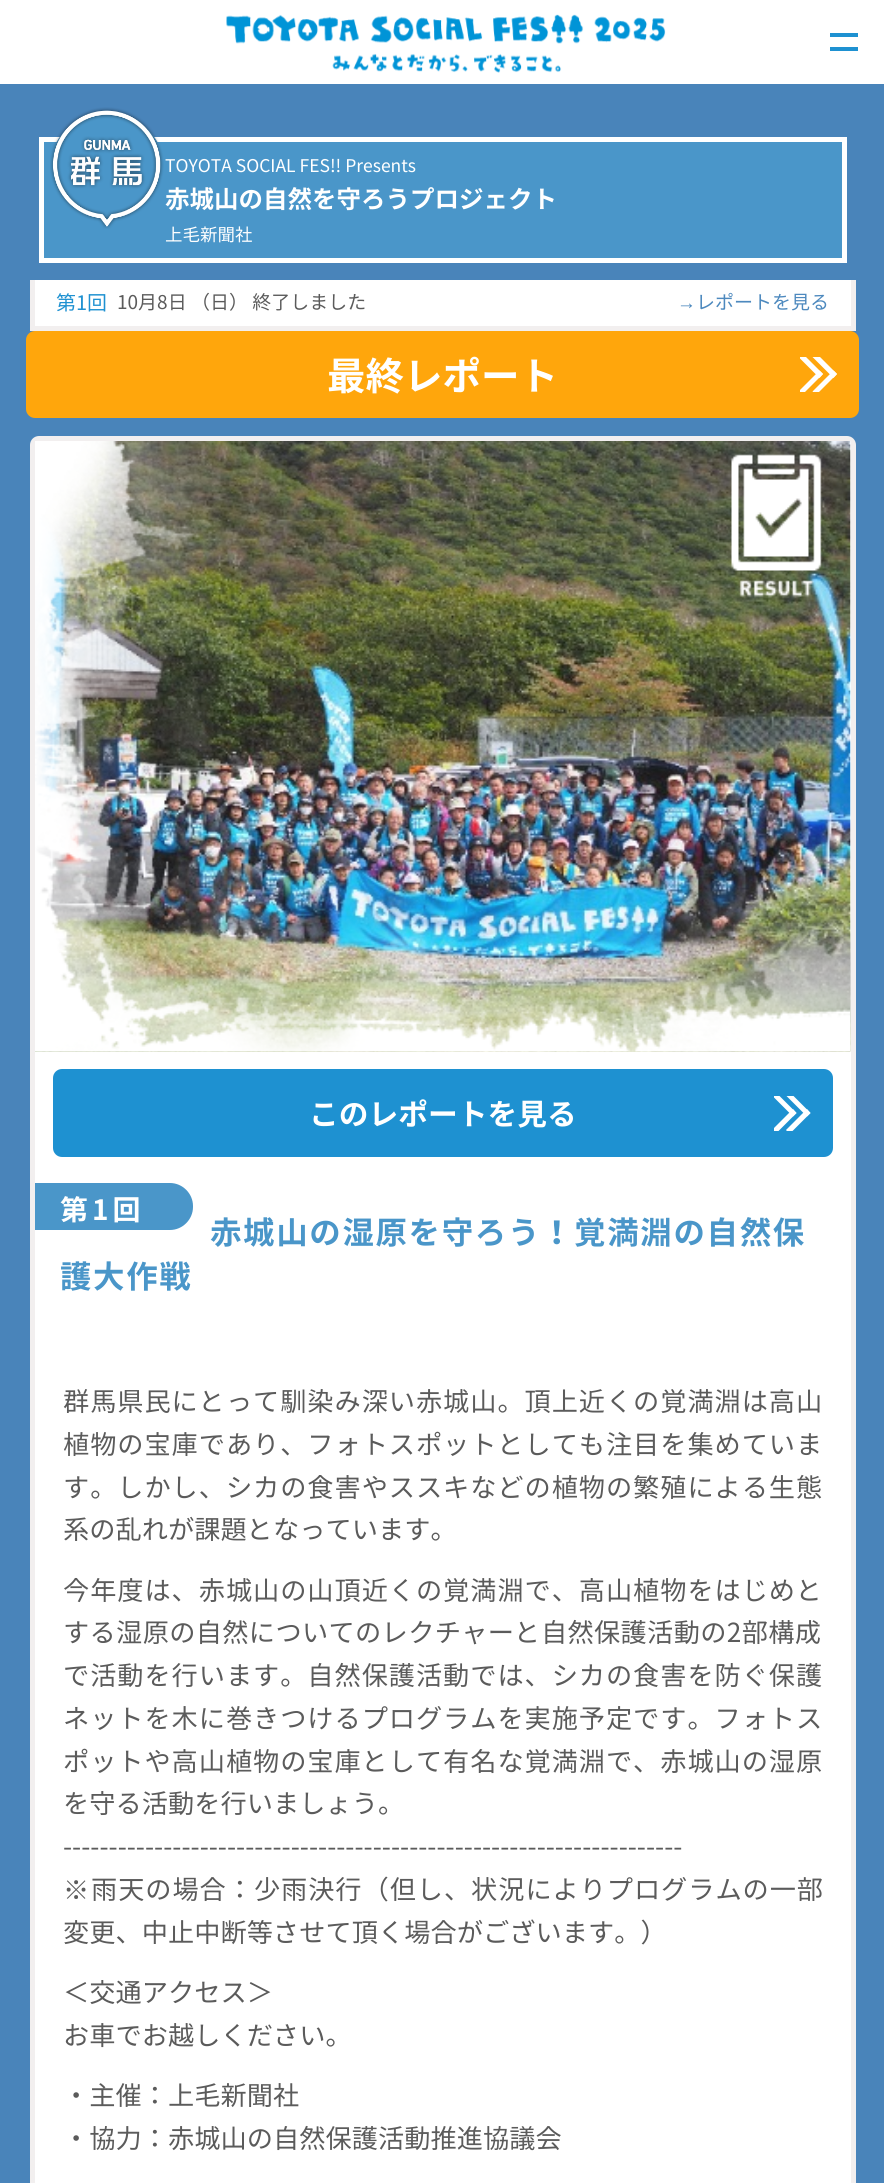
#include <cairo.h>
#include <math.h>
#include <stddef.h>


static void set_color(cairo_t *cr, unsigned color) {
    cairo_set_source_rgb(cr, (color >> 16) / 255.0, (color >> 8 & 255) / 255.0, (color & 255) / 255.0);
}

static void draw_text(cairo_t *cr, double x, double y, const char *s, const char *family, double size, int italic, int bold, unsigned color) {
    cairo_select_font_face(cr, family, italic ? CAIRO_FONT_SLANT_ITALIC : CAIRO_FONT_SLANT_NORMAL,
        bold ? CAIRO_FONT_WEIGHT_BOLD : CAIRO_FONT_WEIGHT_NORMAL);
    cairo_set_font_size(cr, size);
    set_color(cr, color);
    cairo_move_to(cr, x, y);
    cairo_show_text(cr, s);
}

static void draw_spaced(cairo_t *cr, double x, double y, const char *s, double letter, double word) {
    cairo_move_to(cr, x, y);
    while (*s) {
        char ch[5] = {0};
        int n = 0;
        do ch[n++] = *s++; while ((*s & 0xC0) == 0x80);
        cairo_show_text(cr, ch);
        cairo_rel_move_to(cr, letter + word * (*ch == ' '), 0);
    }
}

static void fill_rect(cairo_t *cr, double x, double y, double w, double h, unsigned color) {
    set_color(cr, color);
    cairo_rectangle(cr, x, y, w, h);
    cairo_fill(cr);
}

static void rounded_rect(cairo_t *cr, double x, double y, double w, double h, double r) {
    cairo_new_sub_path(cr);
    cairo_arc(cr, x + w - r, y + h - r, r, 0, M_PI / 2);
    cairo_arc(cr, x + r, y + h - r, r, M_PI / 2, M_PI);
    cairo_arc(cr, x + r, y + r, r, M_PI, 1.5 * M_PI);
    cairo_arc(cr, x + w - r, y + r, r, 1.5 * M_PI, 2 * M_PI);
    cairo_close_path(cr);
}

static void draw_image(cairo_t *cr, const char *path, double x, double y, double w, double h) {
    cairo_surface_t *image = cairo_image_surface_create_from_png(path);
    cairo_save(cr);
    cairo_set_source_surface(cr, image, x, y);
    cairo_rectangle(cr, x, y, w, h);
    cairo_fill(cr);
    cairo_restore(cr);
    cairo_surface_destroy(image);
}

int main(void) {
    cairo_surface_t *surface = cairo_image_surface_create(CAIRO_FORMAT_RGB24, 884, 2183);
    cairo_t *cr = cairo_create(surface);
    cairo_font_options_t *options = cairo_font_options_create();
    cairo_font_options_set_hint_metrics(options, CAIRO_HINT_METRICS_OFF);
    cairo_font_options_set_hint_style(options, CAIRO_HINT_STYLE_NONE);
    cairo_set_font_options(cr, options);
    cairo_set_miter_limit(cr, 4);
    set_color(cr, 0x4984BA);
    cairo_paint(cr);
    fill_rect(cr, 0, 0, 884, 84, 0xFFFFFF);
    draw_image(cr, "assets/img1.png", 226, 14, 440, 59);
    fill_rect(cr, 830, 33, 28, 4, 0x1E91D1);
    fill_rect(cr, 830, 47, 28, 4, 0x1E91D1);
    set_color(cr, 0x4A96C9);
    cairo_rectangle(cr, 41.5, 139.5, 803, 121);
    cairo_fill_preserve(cr);
    set_color(cr, 0xFFFFFF);
    cairo_set_line_width(cr, 5);
    cairo_stroke(cr);
    set_color(cr, 0x4A96C9);
    rounded_rect(cr, 49, 114, 116, 122, 56);
    cairo_fill(cr);
    draw_image(cr, "assets/img2.png", 50, 107, 114, 122);
    draw_text(cr, 165, 172, "TOYOTA SOCIAL FES!! Presents", "Noto Sans JP", 17.5, 0, 0, 0xFFFFFF);
    draw_text(cr, 165, 208, "赤城山の自然を守ろうプロジェクト", "Noto Sans JP", 24.5, 0, 1, 0xFFFFFF);
    draw_text(cr, 165, 241, "上毛新聞社", "Noto Sans JP", 17.5, 0, 0, 0xFFFFFF);
    fill_rect(cr, 30, 280, 826, 51, 0xF2EFEF);
    fill_rect(cr, 35, 280, 816, 46, 0xFFFFFF);
    draw_text(cr, 56, 310, "第1回", "Noto Sans JP", 20, 0, 0, 0x1E91D1);
    draw_text(cr, 117, 309, "10月8日 （日） 終了しました", "Noto Sans JP", 19, 0, 0, 0x5B5B5B);
    draw_text(cr, 677, 309, "→", "Liberation Sans", 19, 0, 0, 0x4D89BE);
    draw_text(cr, 696, 309, "レポートを見る", "Noto Sans JP", 19, 0, 0, 0x4D89BE);
    set_color(cr, 0xFFA60C);
    rounded_rect(cr, 26, 331, 833, 87, 9);
    cairo_fill(cr);
    draw_text(cr, 327, 390, "最終レポート", "Noto Sans JP", 38.5, 0, 1, 0xFFFFFF);
    cairo_save(cr);
    cairo_rectangle(cr, 800, 357, 38, 35);
    cairo_clip(cr);
    cairo_new_path(cr);
    cairo_move_to(cr, 816, 353);
    cairo_line_to(cr, 837, 374);
    cairo_line_to(cr, 833.5, 378);
    cairo_line_to(cr, 812.5, 357);
    cairo_close_path(cr);
    cairo_fill(cr);
    cairo_new_path(cr);
    cairo_move_to(cr, 833.5, 370.5);
    cairo_line_to(cr, 837, 374);
    cairo_line_to(cr, 816, 395);
    cairo_line_to(cr, 812.5, 391.5);
    cairo_close_path(cr);
    cairo_fill(cr);
    cairo_new_path(cr);
    cairo_move_to(cr, 802, 353);
    cairo_line_to(cr, 823, 374);
    cairo_line_to(cr, 819.5, 378);
    cairo_line_to(cr, 798.5, 357);
    cairo_close_path(cr);
    cairo_fill(cr);
    cairo_new_path(cr);
    cairo_move_to(cr, 819.5, 370.5);
    cairo_line_to(cr, 823, 374);
    cairo_line_to(cr, 802, 395);
    cairo_line_to(cr, 798.5, 391.5);
    cairo_close_path(cr);
    cairo_fill(cr);
    cairo_restore(cr);
    set_color(cr, 0xF2EFEF);
    rounded_rect(cr, 30, 436, 826, 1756, 9);
    cairo_fill(cr);
    fill_rect(cr, 35, 441, 816, 1742, 0xFFFFFF);
    draw_image(cr, "assets/img4.png", 35, 441, 816, 611);
    draw_image(cr, "assets/img5.png", 35, 441, 816, 611);
    draw_image(cr, "assets/img3.png", 731, 454, 91, 144);
    set_color(cr, 0x1E91D1);
    rounded_rect(cr, 53, 1069, 780, 88, 9);
    cairo_fill(cr);
    draw_text(cr, 309, 1125, "このレポートを見る", "Noto Sans JP", 29.75, 0, 1, 0xFFFFFF);
    cairo_save(cr);
    cairo_rectangle(cr, 774, 1096, 38, 35);
    cairo_clip(cr);
    cairo_new_path(cr);
    cairo_move_to(cr, 789.5, 1092);
    cairo_line_to(cr, 810.5, 1113);
    cairo_line_to(cr, 807, 1116.5);
    cairo_line_to(cr, 786, 1095.5);
    cairo_close_path(cr);
    cairo_fill(cr);
    cairo_new_path(cr);
    cairo_move_to(cr, 807, 1109);
    cairo_line_to(cr, 810.5, 1113);
    cairo_line_to(cr, 789.5, 1134);
    cairo_line_to(cr, 786, 1130);
    cairo_close_path(cr);
    cairo_fill(cr);
    cairo_new_path(cr);
    cairo_move_to(cr, 775.5, 1092);
    cairo_line_to(cr, 796.5, 1113);
    cairo_line_to(cr, 793, 1116.5);
    cairo_line_to(cr, 772, 1095.5);
    cairo_close_path(cr);
    cairo_fill(cr);
    cairo_new_path(cr);
    cairo_move_to(cr, 793, 1109);
    cairo_line_to(cr, 796.5, 1113);
    cairo_line_to(cr, 775.5, 1134);
    cairo_line_to(cr, 772, 1130);
    cairo_close_path(cr);
    cairo_fill(cr);
    cairo_restore(cr);
    set_color(cr, 0x4A96C9);
    cairo_new_path(cr);
    cairo_move_to(cr, 35, 1183);
    cairo_line_to(cr, 170, 1183);
    cairo_curve_to(cr, 182.5, 1183, 193, 1193.5, 193, 1206);
    cairo_line_to(cr, 193, 1207);
    cairo_curve_to(cr, 193, 1219.5, 182.5, 1230, 170, 1230);
    cairo_line_to(cr, 35, 1230);
    cairo_close_path(cr);
    cairo_fill(cr);
    cairo_set_font_size(cr, 28);
    set_color(cr, 0xFFFFFF);
    draw_spaced(cr, 60, 1220, "第1回", 4, 0);
    cairo_set_font_size(cr, 31.5);
    set_color(cr, 0x4A96C9);
    draw_spaced(cr, 210, 1244, "赤城山の湿原を守ろう！覚満淵の自然保", 1.6, 0);
    draw_spaced(cr, 60, 1288, "護大作戦", 1.6, 0);
    cairo_select_font_face(cr, "Noto Sans JP", CAIRO_FONT_SLANT_NORMAL, CAIRO_FONT_WEIGHT_NORMAL);
    cairo_set_font_size(cr, 26.25);
    set_color(cr, 0x5B5B5B);
    draw_spaced(cr, 63, 1411, "群馬県民にとって馴染み深い赤城山。頂上近くの覚満淵は高山", 0.9, 0);
    draw_spaced(cr, 63, 1454, "植物の宝庫であり、フォトスポットとしても注目を集めていま", 0.9, 0);
    draw_spaced(cr, 63, 1497, "す。しかし、シカの食害やススキなどの植物の繁殖による生態", 0.9, 0);
    draw_text(cr, 63, 1539, "系の乱れが課題となっています。", "Noto Sans JP", 26.25, 0, 0, 0x5B5B5B);
    draw_spaced(cr, 63, 1600, "今年度は、赤城山の山頂近くの覚満淵で、高山植物をはじめと", 0.9, 0);
    draw_spaced(cr, 63, 1642, "する湿原の自然についてのレクチャーと自然保護活動の2部構成", 0.3, 0);
    draw_spaced(cr, 63, 1685, "で活動を行います。自然保護活動では、シカの食害を防ぐ保護", 0.9, 0);
    draw_spaced(cr, 63, 1728, "ネットを木に巻きつけるプログラムを実施予定です。フォトス", 0.9, 0);
    draw_spaced(cr, 63, 1771, "ポットや高山植物の宝庫として有名な覚満淵で、赤城山の湿原", 0.9, 0);
    draw_text(cr, 63, 1813, "を守る活動を行いましょう。", "Noto Sans JP", 26.25, 0, 0, 0x5B5B5B);
    draw_text(cr, 63, 1856, "--------------------------------------------------------------------", "Noto Sans JP", 26.25, 0, 0, 0x5B5B5B);
    cairo_select_font_face(cr, "WenQuanYi Zen Hei Medium", CAIRO_FONT_SLANT_NORMAL, CAIRO_FONT_WEIGHT_NORMAL);
    draw_spaced(cr, 63, 1899, "※", 0.9, 0);
    cairo_select_font_face(cr, "Noto Sans JP", CAIRO_FONT_SLANT_NORMAL, CAIRO_FONT_WEIGHT_NORMAL);
    draw_spaced(cr, 91, 1899, "雨天の場合：少雨決行（但し、状況によりプログラムの一部", 0.9, 0);
    draw_text(cr, 63, 1942, "変更、中止中断等させて頂く場合がございます。）", "Noto Sans JP", 26.25, 0, 0, 0x5B5B5B);
    draw_text(cr, 63, 2002, "＜交通アクセス＞", "Noto Sans JP", 26.25, 0, 0, 0x5B5B5B);
    draw_text(cr, 63, 2045, "お車でお越しください。", "Noto Sans JP", 26.25, 0, 0, 0x5B5B5B);
    draw_text(cr, 63, 2105, "・主催：上毛新聞社", "Noto Sans JP", 26.25, 0, 0, 0x5B5B5B);
    draw_text(cr, 63, 2148, "・協力：赤城山の自然保護活動推進協議会", "Noto Sans JP", 26.25, 0, 0, 0x5B5B5B);
    cairo_surface_write_to_png(surface, "output.png");
    cairo_font_options_destroy(options);
    cairo_destroy(cr);
    cairo_surface_destroy(surface);
    return 0;
}
